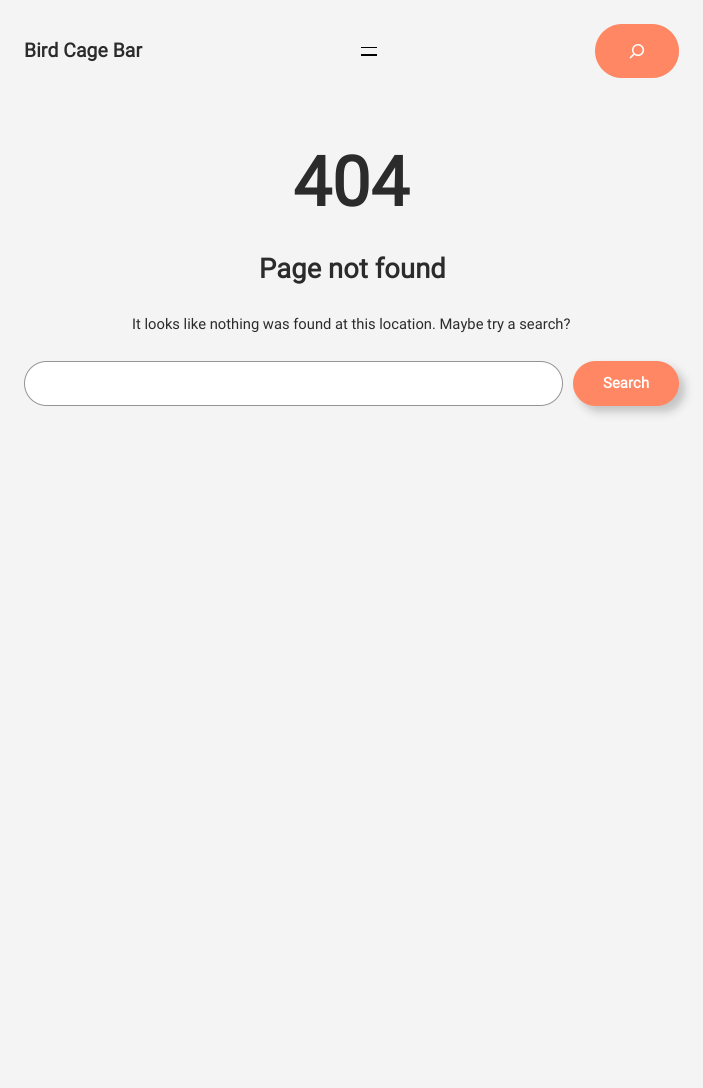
#include <cairo.h>
#include <math.h>
#include <stddef.h>


static void set_color(cairo_t *cr, unsigned color) {
    cairo_set_source_rgb(cr, (color >> 16) / 255.0, (color >> 8 & 255) / 255.0, (color & 255) / 255.0);
}

static void draw_text(cairo_t *cr, double x, double y, const char *s, const char *family, double size, int italic, int bold, unsigned color) {
    cairo_select_font_face(cr, family, italic ? CAIRO_FONT_SLANT_ITALIC : CAIRO_FONT_SLANT_NORMAL,
        bold ? CAIRO_FONT_WEIGHT_BOLD : CAIRO_FONT_WEIGHT_NORMAL);
    cairo_set_font_size(cr, size);
    set_color(cr, color);
    cairo_move_to(cr, x, y);
    cairo_show_text(cr, s);
}

static void fill_rect(cairo_t *cr, double x, double y, double w, double h, unsigned color) {
    set_color(cr, color);
    cairo_rectangle(cr, x, y, w, h);
    cairo_fill(cr);
}

static void rounded_rect(cairo_t *cr, double x, double y, double w, double h, double r) {
    cairo_new_sub_path(cr);
    cairo_arc(cr, x + w - r, y + h - r, r, 0, M_PI / 2);
    cairo_arc(cr, x + r, y + h - r, r, M_PI / 2, M_PI);
    cairo_arc(cr, x + r, y + r, r, M_PI, 1.5 * M_PI);
    cairo_arc(cr, x + w - r, y + r, r, 1.5 * M_PI, 2 * M_PI);
    cairo_close_path(cr);
}

static void draw_shadow(cairo_t *cr, double x, double y, double w, double h, double r, double blur, double alpha) {
    cairo_push_group_with_content(cr, CAIRO_CONTENT_ALPHA);
    cairo_set_operator(cr, CAIRO_OPERATOR_SOURCE);
    for (int i = 15; i >= -15 && fmin(w, h) + blur * i / 3 > 0; i -= 2) {
        double e = blur * i / 6;
        cairo_set_source_rgba(cr, 0, 0, 0, alpha * erfc((i - 1) / 8.5) / 2);
        rounded_rect(cr, x - e, y - e, w + 2 * e, h + 2 * e, fmax(0, fmin(r + e + blur * .6, fmin(w, h) / 2 + e)));
        cairo_fill(cr);
    }
    cairo_pattern_t *soft = cairo_pop_group(cr);
    cairo_mask(cr, soft);
    cairo_pattern_destroy(soft);
}

static void draw_image(cairo_t *cr, const char *path, double x, double y, double w, double h) {
    cairo_surface_t *image = cairo_image_surface_create_from_png(path);
    cairo_save(cr);
    cairo_set_source_surface(cr, image, x, y);
    cairo_rectangle(cr, x, y, w, h);
    cairo_fill(cr);
    cairo_restore(cr);
    cairo_surface_destroy(image);
}

int main(void) {
    cairo_surface_t *surface = cairo_image_surface_create(CAIRO_FORMAT_RGB24, 703, 1088);
    cairo_t *cr = cairo_create(surface);
    cairo_font_options_t *options = cairo_font_options_create();
    cairo_font_options_set_hint_metrics(options, CAIRO_HINT_METRICS_OFF);
    cairo_font_options_set_hint_style(options, CAIRO_HINT_STYLE_NONE);
    cairo_set_font_options(cr, options);
    cairo_set_miter_limit(cr, 4);
    set_color(cr, 0xF4F4F4);
    cairo_paint(cr);
    draw_text(cr, 24, 57, "Bird Cage Bar", "Roboto", 19.5, 0, 1, 0x2B2B2B);
    fill_rect(cr, 361, 47, 16, 1, 0x000000);
    fill_rect(cr, 361, 54, 16, 2, 0x000000);
    cairo_save(cr);
    rounded_rect(cr, 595, 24, 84, 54, 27);
    cairo_clip(cr);
    set_color(cr, 0x000000);
    draw_shadow(cr, 601, 30, 84, 54, 27, 4.5, 0.2);
    cairo_restore(cr);
    set_color(cr, 0xFF8763);
    rounded_rect(cr, 595, 24, 84, 54, 27);
    cairo_fill(cr);
    draw_image(cr, "assets/img1.png", 629, 44, 16, 15);
    draw_text(cr, 293, 206, "404", "Roboto", 69, 0, 1, 0x2B2B2B);
    draw_text(cr, 259, 278, "Page not found", "Roboto", 27.5, 0, 1, 0x2B2B2B);
    draw_text(cr, 132, 329, "It looks like nothing was found at this location. Maybe try a search?", "Roboto", 14.75, 0, 0, 0x2B2B2B);
    set_color(cr, 0xFFFFFF);
    rounded_rect(cr, 24.5, 361.5, 538, 44, 22);
    cairo_fill_preserve(cr);
    set_color(cr, 0x949494);
    cairo_set_line_width(cr, 1);
    cairo_stroke(cr);
    set_color(cr, 0x000000);
    draw_shadow(cr, 579, 367, 106, 45, 22.5, 4.5, 0.2);
    set_color(cr, 0xFF8763);
    rounded_rect(cr, 573, 361, 106, 45, 22.5);
    cairo_fill(cr);
    draw_text(cr, 603, 388, "Search", "Roboto", 15, 0, 1, 0xFFFFFF);
    cairo_surface_write_to_png(surface, "output.png");
    cairo_font_options_destroy(options);
    cairo_destroy(cr);
    cairo_surface_destroy(surface);
    return 0;
}
